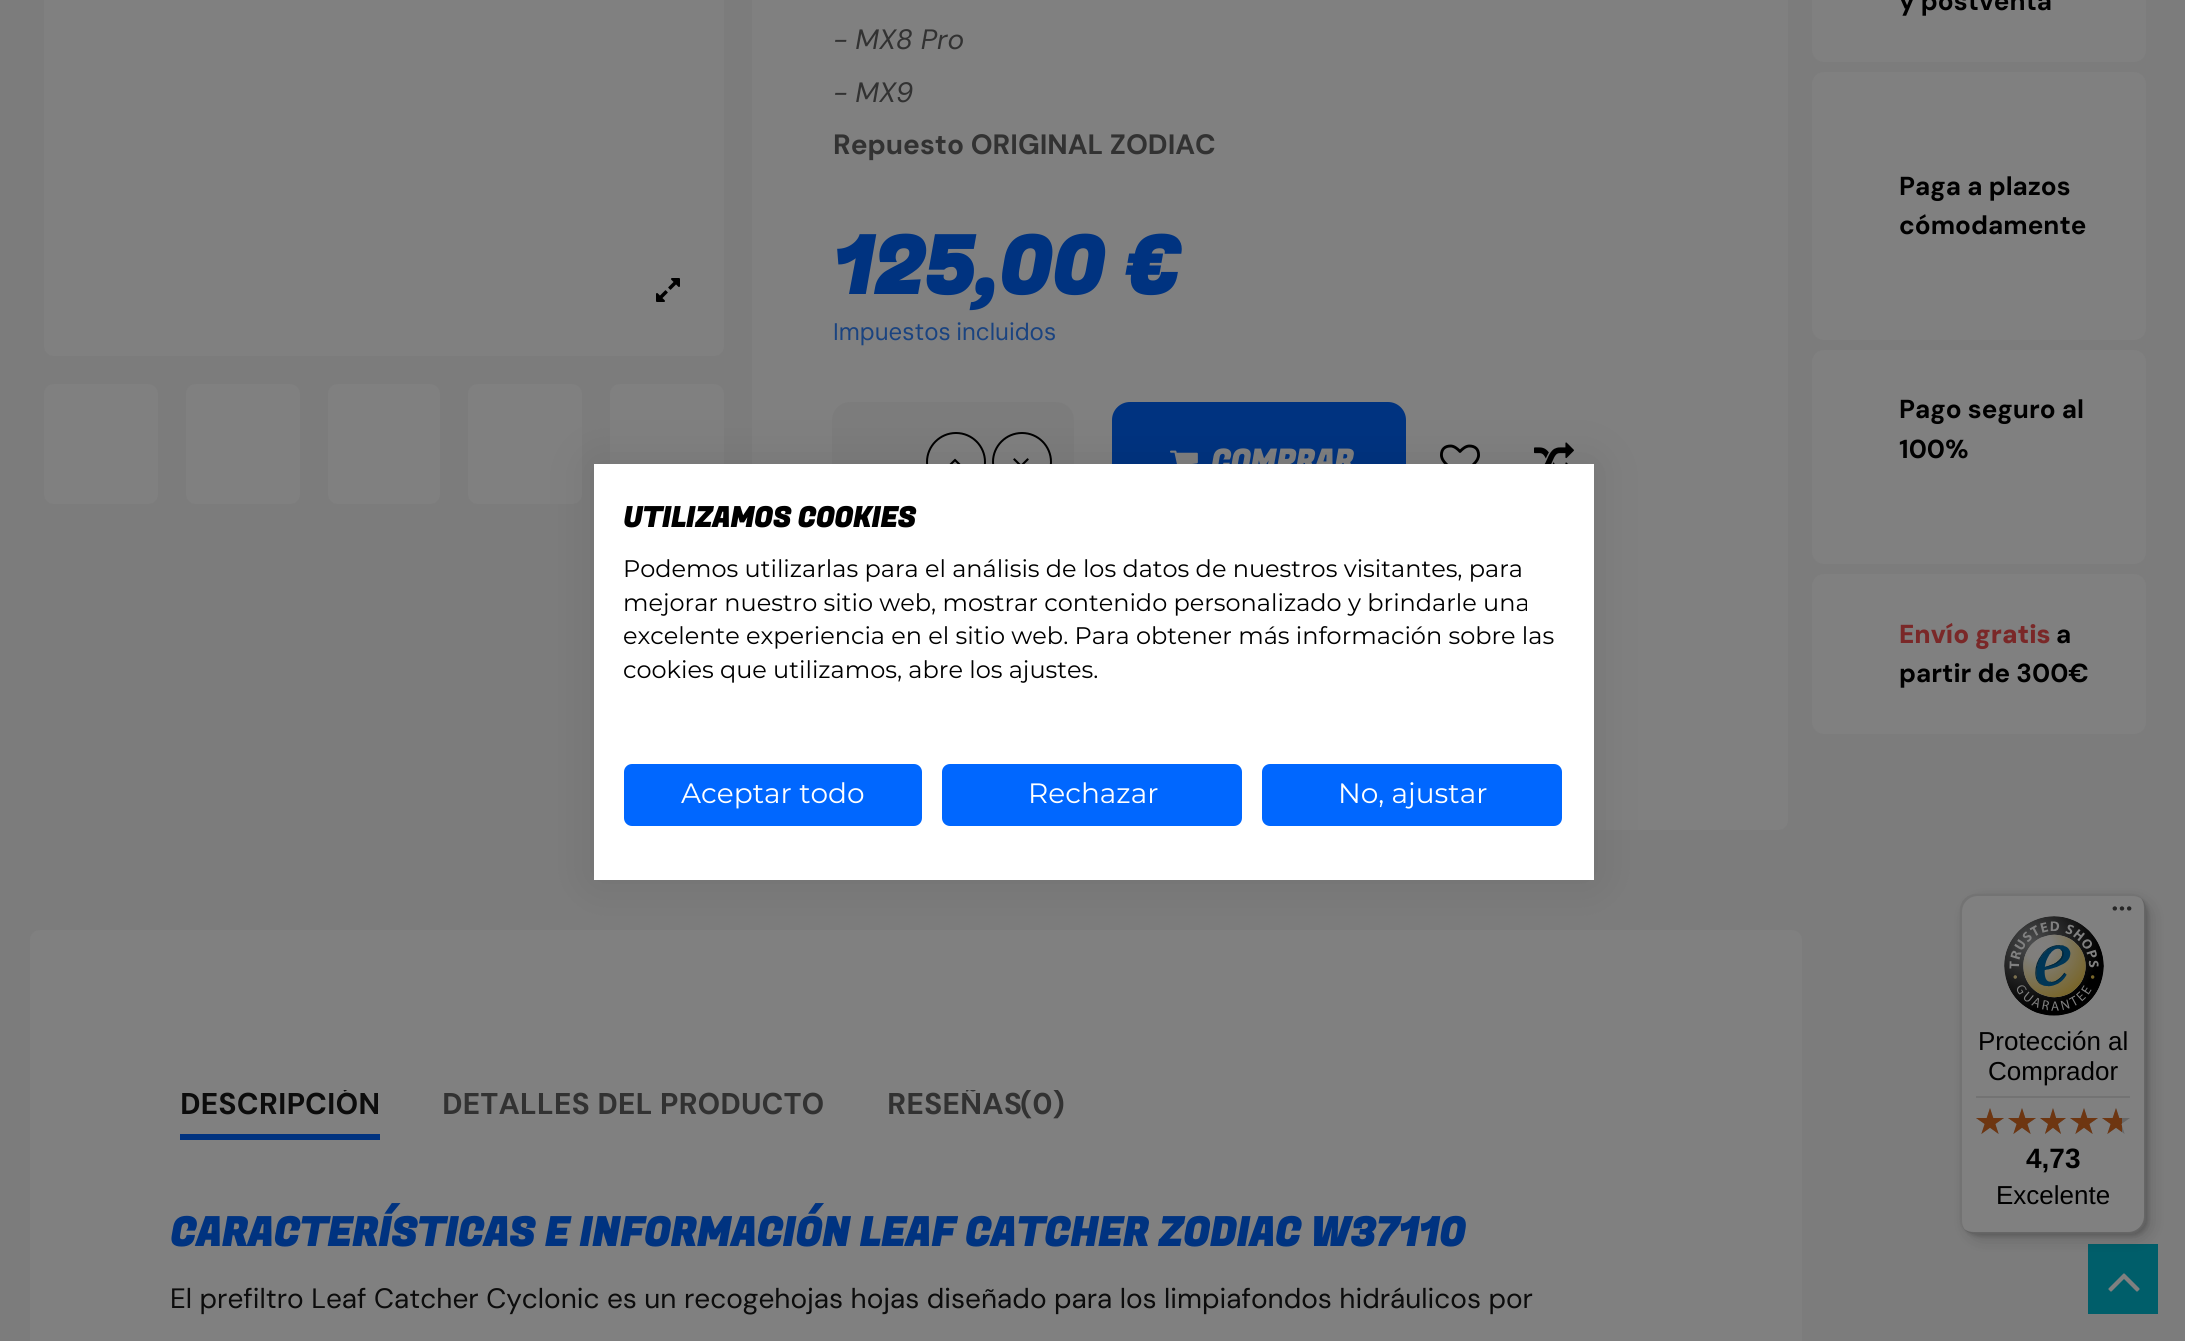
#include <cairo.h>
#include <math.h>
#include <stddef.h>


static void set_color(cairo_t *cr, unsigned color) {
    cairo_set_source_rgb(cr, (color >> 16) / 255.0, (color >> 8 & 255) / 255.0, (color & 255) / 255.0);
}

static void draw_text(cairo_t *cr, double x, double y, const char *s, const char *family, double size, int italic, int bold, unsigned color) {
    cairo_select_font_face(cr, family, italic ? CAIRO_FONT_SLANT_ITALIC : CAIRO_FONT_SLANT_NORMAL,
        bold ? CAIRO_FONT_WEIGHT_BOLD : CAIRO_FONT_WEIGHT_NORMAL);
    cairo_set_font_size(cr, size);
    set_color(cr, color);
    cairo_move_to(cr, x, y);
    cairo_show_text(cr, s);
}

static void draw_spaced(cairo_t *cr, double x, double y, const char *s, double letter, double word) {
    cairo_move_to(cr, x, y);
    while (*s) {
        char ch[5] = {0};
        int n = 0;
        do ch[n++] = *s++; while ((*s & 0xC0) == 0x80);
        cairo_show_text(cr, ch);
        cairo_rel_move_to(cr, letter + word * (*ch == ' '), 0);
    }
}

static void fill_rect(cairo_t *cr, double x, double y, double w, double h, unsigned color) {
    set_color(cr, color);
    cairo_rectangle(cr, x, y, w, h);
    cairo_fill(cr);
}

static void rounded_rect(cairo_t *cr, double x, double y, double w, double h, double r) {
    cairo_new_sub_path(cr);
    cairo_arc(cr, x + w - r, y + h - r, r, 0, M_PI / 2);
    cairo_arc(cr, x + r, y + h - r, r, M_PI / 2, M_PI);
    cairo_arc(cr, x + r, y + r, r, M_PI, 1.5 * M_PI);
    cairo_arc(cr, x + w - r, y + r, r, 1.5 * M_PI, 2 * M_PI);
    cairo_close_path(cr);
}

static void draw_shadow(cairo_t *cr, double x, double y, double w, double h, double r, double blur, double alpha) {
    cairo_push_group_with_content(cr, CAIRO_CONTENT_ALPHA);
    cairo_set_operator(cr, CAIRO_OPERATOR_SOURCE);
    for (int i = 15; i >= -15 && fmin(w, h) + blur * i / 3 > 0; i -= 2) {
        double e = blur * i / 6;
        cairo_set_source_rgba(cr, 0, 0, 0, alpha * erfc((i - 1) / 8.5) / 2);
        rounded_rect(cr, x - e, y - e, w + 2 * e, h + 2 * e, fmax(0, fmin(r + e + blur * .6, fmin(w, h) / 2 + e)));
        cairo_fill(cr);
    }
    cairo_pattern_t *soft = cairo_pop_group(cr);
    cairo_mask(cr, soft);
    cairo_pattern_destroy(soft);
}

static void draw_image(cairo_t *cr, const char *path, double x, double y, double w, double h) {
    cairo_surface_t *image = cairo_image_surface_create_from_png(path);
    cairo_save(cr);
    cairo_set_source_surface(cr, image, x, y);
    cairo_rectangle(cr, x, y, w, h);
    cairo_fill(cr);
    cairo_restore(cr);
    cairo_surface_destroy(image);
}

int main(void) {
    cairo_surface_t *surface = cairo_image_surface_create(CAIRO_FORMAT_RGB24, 2185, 1341);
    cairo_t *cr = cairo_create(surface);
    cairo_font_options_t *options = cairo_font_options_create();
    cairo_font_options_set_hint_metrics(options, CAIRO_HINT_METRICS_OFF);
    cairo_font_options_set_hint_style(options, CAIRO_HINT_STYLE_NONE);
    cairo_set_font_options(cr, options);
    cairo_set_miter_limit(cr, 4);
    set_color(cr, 0x7C7C7C);
    cairo_paint(cr);
    set_color(cr, 0x808080);
    rounded_rect(cr, 44, -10, 680, 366, 10);
    cairo_fill(cr);
    draw_image(cr, "assets/img1.png", 656, 278, 24, 24);
    rounded_rect(cr, 44, 384, 114, 120, 10);
    cairo_fill(cr);
    rounded_rect(cr, 186, 384, 114, 120, 10);
    cairo_fill(cr);
    rounded_rect(cr, 328, 384, 112, 120, 10);
    cairo_fill(cr);
    rounded_rect(cr, 468, 384, 114, 120, 10);
    cairo_fill(cr);
    rounded_rect(cr, 610, 384, 114, 120, 10);
    cairo_fill(cr);
    rounded_rect(cr, 752, -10, 1036, 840, 10);
    cairo_fill(cr);
    draw_text(cr, 833, 49, "- MX8 Pro", "DM Sans", 28, 1, 0, 0x323232);
    draw_text(cr, 833, 102, "- MX9", "DM Sans", 28, 1, 0, 0x323232);
    draw_text(cr, 833, 154, "Repuesto ORIGINAL ZODIAC", "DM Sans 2", 28, 0, 1, 0x323232);
    draw_text(cr, 833, 294, "125,00 €", "Fugaz One", 80, 0, 1, 0x003380);
    cairo_select_font_face(cr, "DM Sans 2", CAIRO_FONT_SLANT_NORMAL, CAIRO_FONT_WEIGHT_NORMAL);
    cairo_set_font_size(cr, 24);
    set_color(cr, 0x1A4380);
    draw_spaced(cr, 833, 340, "Impuestos incluidos", 0, -1);
    set_color(cr, 0x7C7C7C);
    rounded_rect(cr, 832, 402, 242, 120, 18);
    cairo_fill(cr);
    set_color(cr, 0x808080);
    cairo_arc(cr, 956, 462, 29, 0, 2 * M_PI);
    cairo_fill_preserve(cr);
    set_color(cr, 0x000000);
    cairo_stroke(cr);
    draw_image(cr, "assets/img2.png", 949, 458, 12, 6);
    set_color(cr, 0x808080);
    cairo_arc(cr, 1022, 462, 29, 0, 2 * M_PI);
    cairo_fill_preserve(cr);
    set_color(cr, 0x000000);
    cairo_stroke(cr);
    draw_image(cr, "assets/img3.png", 1013, 458, 16, 6);
    set_color(cr, 0x003380);
    rounded_rect(cr, 1112, 402, 294, 120, 18);
    cairo_fill(cr);
    draw_image(cr, "assets/img4.png", 1170, 450, 28, 14);
    draw_text(cr, 1211, 471, "COMPRAR", "Fugaz One", 30, 0, 1, 0x808080);
    draw_image(cr, "assets/img5.png", 1440, 444, 40, 20);
    draw_image(cr, "assets/img6.png", 1534, 442, 40, 22);
    rounded_rect(cr, 1812, -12, 334, 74, 12);
    cairo_fill(cr);
    draw_text(cr, 1899, 10, "y postventa", "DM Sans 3", 26, 0, 1, 0x000000);
    set_color(cr, 0x808080);
    rounded_rect(cr, 1812, 72, 334, 268, 12);
    cairo_fill(cr);
    draw_text(cr, 1899, 195, "Paga a plazos", "DM Sans 3", 26, 0, 1, 0x000000);
    draw_text(cr, 1899, 234, "cómodamente", "DM Sans 3", 26, 0, 1, 0x000000);
    set_color(cr, 0x808080);
    rounded_rect(cr, 1812, 350, 334, 214, 12);
    cairo_fill(cr);
    draw_text(cr, 1899, 418, "Pago seguro al", "DM Sans 3", 26, 0, 1, 0x000000);
    draw_text(cr, 1899, 458, "100%", "DM Sans 3", 26, 0, 1, 0x000000);
    set_color(cr, 0x808080);
    rounded_rect(cr, 1812, 574, 334, 160, 12);
    cairo_fill(cr);
    draw_text(cr, 1899, 643, "Envío gratis", "DM Sans Black", 26, 0, 0, 0x7A2828);
    draw_text(cr, 2056, 643, "a", "DM Sans 3", 26, 0, 1, 0x000000);
    draw_text(cr, 1899, 682, "partir de 300€", "DM Sans 3", 26, 0, 1, 0x000000);
    set_color(cr, 0x808080);
    rounded_rect(cr, 30, 930, 1772, 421, 10);
    cairo_fill(cr);
    fill_rect(cr, 180, 1134, 200, 6, 0x003380);
    cairo_save(cr);
    cairo_rectangle(cr, 170, 1090, 1492, 100);
    cairo_clip(cr);
    draw_text(cr, 180, 1114, "DESCRIPCIÓN", "DM Sans", 30, 0, 1, 0x0C0C0C);
    cairo_restore(cr);
    draw_text(cr, 442, 1114, "DETALLES DEL PRODUCTO", "DM Sans", 30, 0, 1, 0x323232);
    cairo_save(cr);
    cairo_rectangle(cr, 170, 1090, 1492, 100);
    cairo_clip(cr);
    draw_text(cr, 887, 1114, "RESEÑAS", "DM Sans", 30, 0, 1, 0x323232);
    draw_text(cr, 1020, 1114, "(0)", "DM Sans", 30, 0, 1, 0x323232);
    cairo_restore(cr);
    draw_text(cr, 170, 1246, "CARACTERÍSTICAS E INFORMACIÓN LEAF CATCHER ZODIAC W37110", "Fugaz One", 40, 0, 1, 0x003380);
    draw_text(cr, 170, 1308, "El prefiltro Leaf Catcher Cyclonic es un recogehojas hojas diseñado para los limpiafondos hidráulicos por", "DM Sans", 28, 0, 0, 0x0C0C0C);
    set_color(cr, 0x000000);
    draw_shadow(cr, 594, 464, 1000, 416, 0, 24, 0.1);
    fill_rect(cr, 594, 464, 1000, 416, 0xFFFFFF);
    draw_text(cr, 623, 527, "UTILIZAMOS COOKIES", "Fugaz One", 28, 0, 1, 0x000000);
    draw_text(cr, 623, 577, "Podemos utilizarlas para el análisis de los datos de nuestros visitantes, para", "Montserrat", 24, 0, 0, 0x000000);
    draw_text(cr, 623, 611, "mejorar nuestro sitio web, mostrar contenido personalizado y brindarle una", "Montserrat", 24, 0, 0, 0x000000);
    draw_text(cr, 623, 644, "excelente experiencia en el sitio web. Para obtener más información sobre las", "Montserrat", 24, 0, 0, 0x000000);
    draw_text(cr, 623, 678, "cookies que utilizamos, abre los ajustes.", "Montserrat", 24, 0, 0, 0x000000);
    set_color(cr, 0x0067FF);
    rounded_rect(cr, 625, 765, 296, 60, 7);
    cairo_fill_preserve(cr);
    cairo_stroke(cr);
    draw_text(cr, 681, 803, "Aceptar todo", "Montserrat", 28, 0, 0, 0xFFFFFF);
    set_color(cr, 0x0067FF);
    rounded_rect(cr, 943, 765, 298, 60, 7);
    cairo_fill_preserve(cr);
    cairo_stroke(cr);
    draw_text(cr, 1028, 803, "Rechazar", "Montserrat", 28, 0, 0, 0xFFFFFF);
    set_color(cr, 0x0067FF);
    rounded_rect(cr, 1263, 765, 298, 60, 7);
    cairo_fill_preserve(cr);
    cairo_stroke(cr);
    draw_text(cr, 1338, 803, "No, ajustar", "Montserrat", 28, 0, 0, 0xFFFFFF);
    fill_rect(cr, 2088, 1244, 70, 70, 0x005E6A);
    set_color(cr, 0x000000);
    draw_shadow(cr, 1966, 900, 186, 340, 16, 8, 0.15);
    draw_shadow(cr, 1962, 896, 186, 340, 16, 2, 0.15);
    set_color(cr, 0x808080);
    rounded_rect(cr, 1960, 894, 186, 340, 16);
    cairo_fill(cr);
    cairo_set_source_rgba(cr, 0, 0, 0, 0.1);
    cairo_new_path(cr);
    cairo_move_to(cr, 1978, 896);
    cairo_line_to(cr, 2132, 896);
    cairo_curve_to(cr, 2136, 896, 2139, 897, 2142, 899);
    cairo_curve_to(cr, 2139, 896, 2135, 894, 2130, 894);
    cairo_line_to(cr, 1976, 894);
    cairo_curve_to(cr, 1967, 894, 1960, 901, 1960, 910);
    cairo_line_to(cr, 1960, 1218);
    cairo_curve_to(cr, 1960, 1223, 1962, 1227, 1965, 1230);
    cairo_curve_to(cr, 1963, 1227, 1962, 1224, 1962, 1220);
    cairo_line_to(cr, 1962, 912);
    cairo_curve_to(cr, 1962, 903, 1969, 896, 1978, 896);
    cairo_close_path(cr);
    cairo_fill(cr);
    cairo_set_source_rgba(cr, 0, 0, 0, 0.2);
    cairo_new_path(cr);
    cairo_move_to(cr, 1964, 1229);
    cairo_curve_to(cr, 1967, 1232, 1971, 1234, 1976, 1234);
    cairo_line_to(cr, 2130, 1234);
    cairo_curve_to(cr, 2139, 1234, 2146, 1227, 2146, 1218);
    cairo_line_to(cr, 2146, 910);
    cairo_curve_to(cr, 2146, 905, 2144, 901, 2141, 898);
    cairo_curve_to(cr, 2143, 901, 2144, 904, 2144, 908);
    cairo_line_to(cr, 2144, 1216);
    cairo_curve_to(cr, 2144, 1225, 2137, 1232, 2128, 1232);
    cairo_line_to(cr, 1974, 1232);
    cairo_curve_to(cr, 1970, 1232, 1967, 1231, 1964, 1229);
    cairo_close_path(cr);
    cairo_fill(cr);
    cairo_set_source_rgba(cr, 0.098, 0.098, 0.098, 0.2);
    cairo_new_path(cr);
    cairo_move_to(cr, 1965, 1229);
    cairo_curve_to(cr, 1968, 1232, 1972, 1234, 1976, 1234);
    cairo_line_to(cr, 2130, 1234);
    cairo_curve_to(cr, 2139, 1234, 2146, 1227, 2146, 1218);
    cairo_line_to(cr, 2146, 910);
    cairo_curve_to(cr, 2146, 906, 2144, 902, 2141, 899);
    cairo_curve_to(cr, 2144, 902, 2145, 905, 2145, 909);
    cairo_line_to(cr, 2145, 1217);
    cairo_curve_to(cr, 2145, 1226, 2138, 1233, 2129, 1233);
    cairo_line_to(cr, 1975, 1233);
    cairo_curve_to(cr, 1971, 1233, 1968, 1232, 1965, 1229);
    cairo_close_path(cr);
    cairo_fill(cr);
    cairo_set_source_rgba(cr, 0.502, 0.502, 0.502, 0.3);
    cairo_new_path(cr);
    cairo_move_to(cr, 1965, 1229);
    cairo_curve_to(cr, 1968, 1232, 1972, 1234, 1976, 1234);
    cairo_line_to(cr, 2130, 1234);
    cairo_curve_to(cr, 2139, 1234, 2146, 1227, 2146, 1218);
    cairo_line_to(cr, 2146, 910);
    cairo_curve_to(cr, 2146, 906, 2144, 902, 2141, 899);
    cairo_curve_to(cr, 2144, 902, 2145, 905, 2145, 909);
    cairo_line_to(cr, 2145, 1217);
    cairo_curve_to(cr, 2145, 1226, 2138, 1233, 2129, 1233);
    cairo_line_to(cr, 1975, 1233);
    cairo_curve_to(cr, 1971, 1233, 1968, 1232, 1965, 1229);
    cairo_close_path(cr);
    cairo_fill(cr);
    draw_image(cr, "assets/img7.png", 2112, 906, 20, 5);
    draw_image(cr, "assets/img8.png", 2004, 916, 100, 100);
    draw_text(cr, 1978, 1050, "Protección al", "Liberation Sans", 26, 0, 0, 0x000000);
    draw_text(cr, 1988, 1080, "Comprador", "Liberation Sans", 26, 0, 0, 0x000000);
    fill_rect(cr, 1976, 1096, 154, 2, 0x737373);
    draw_image(cr, "assets/img9.png", 1976, 1108, 28, 26);
    draw_image(cr, "assets/img9.png", 2008, 1108, 28, 26);
    draw_image(cr, "assets/img10.png", 2040, 1108, 26, 26);
    draw_image(cr, "assets/img9.png", 2070, 1108, 28, 26);
    draw_image(cr, "assets/img9.png", 2102, 1108, 28, 26);
    draw_image(cr, "assets/img11.png", 1976, 1108, 28, 26);
    draw_image(cr, "assets/img11.png", 2008, 1108, 28, 26);
    draw_image(cr, "assets/img12.png", 2040, 1108, 26, 26);
    draw_image(cr, "assets/img11.png", 2070, 1108, 28, 26);
    draw_image(cr, "assets/img13.png", 2102, 1108, 20, 26);
    draw_text(cr, 2026, 1168, "4,73", "Liberation Sans", 28, 0, 1, 0x000000);
    draw_text(cr, 1996, 1204, "Excelente", "Liberation Sans", 26, 0, 0, 0x000000);
    draw_image(cr, "assets/img14.png", 2108, 1273, 32, 19);
    cairo_surface_write_to_png(surface, "output.png");
    cairo_font_options_destroy(options);
    cairo_destroy(cr);
    cairo_surface_destroy(surface);
    return 0;
}
